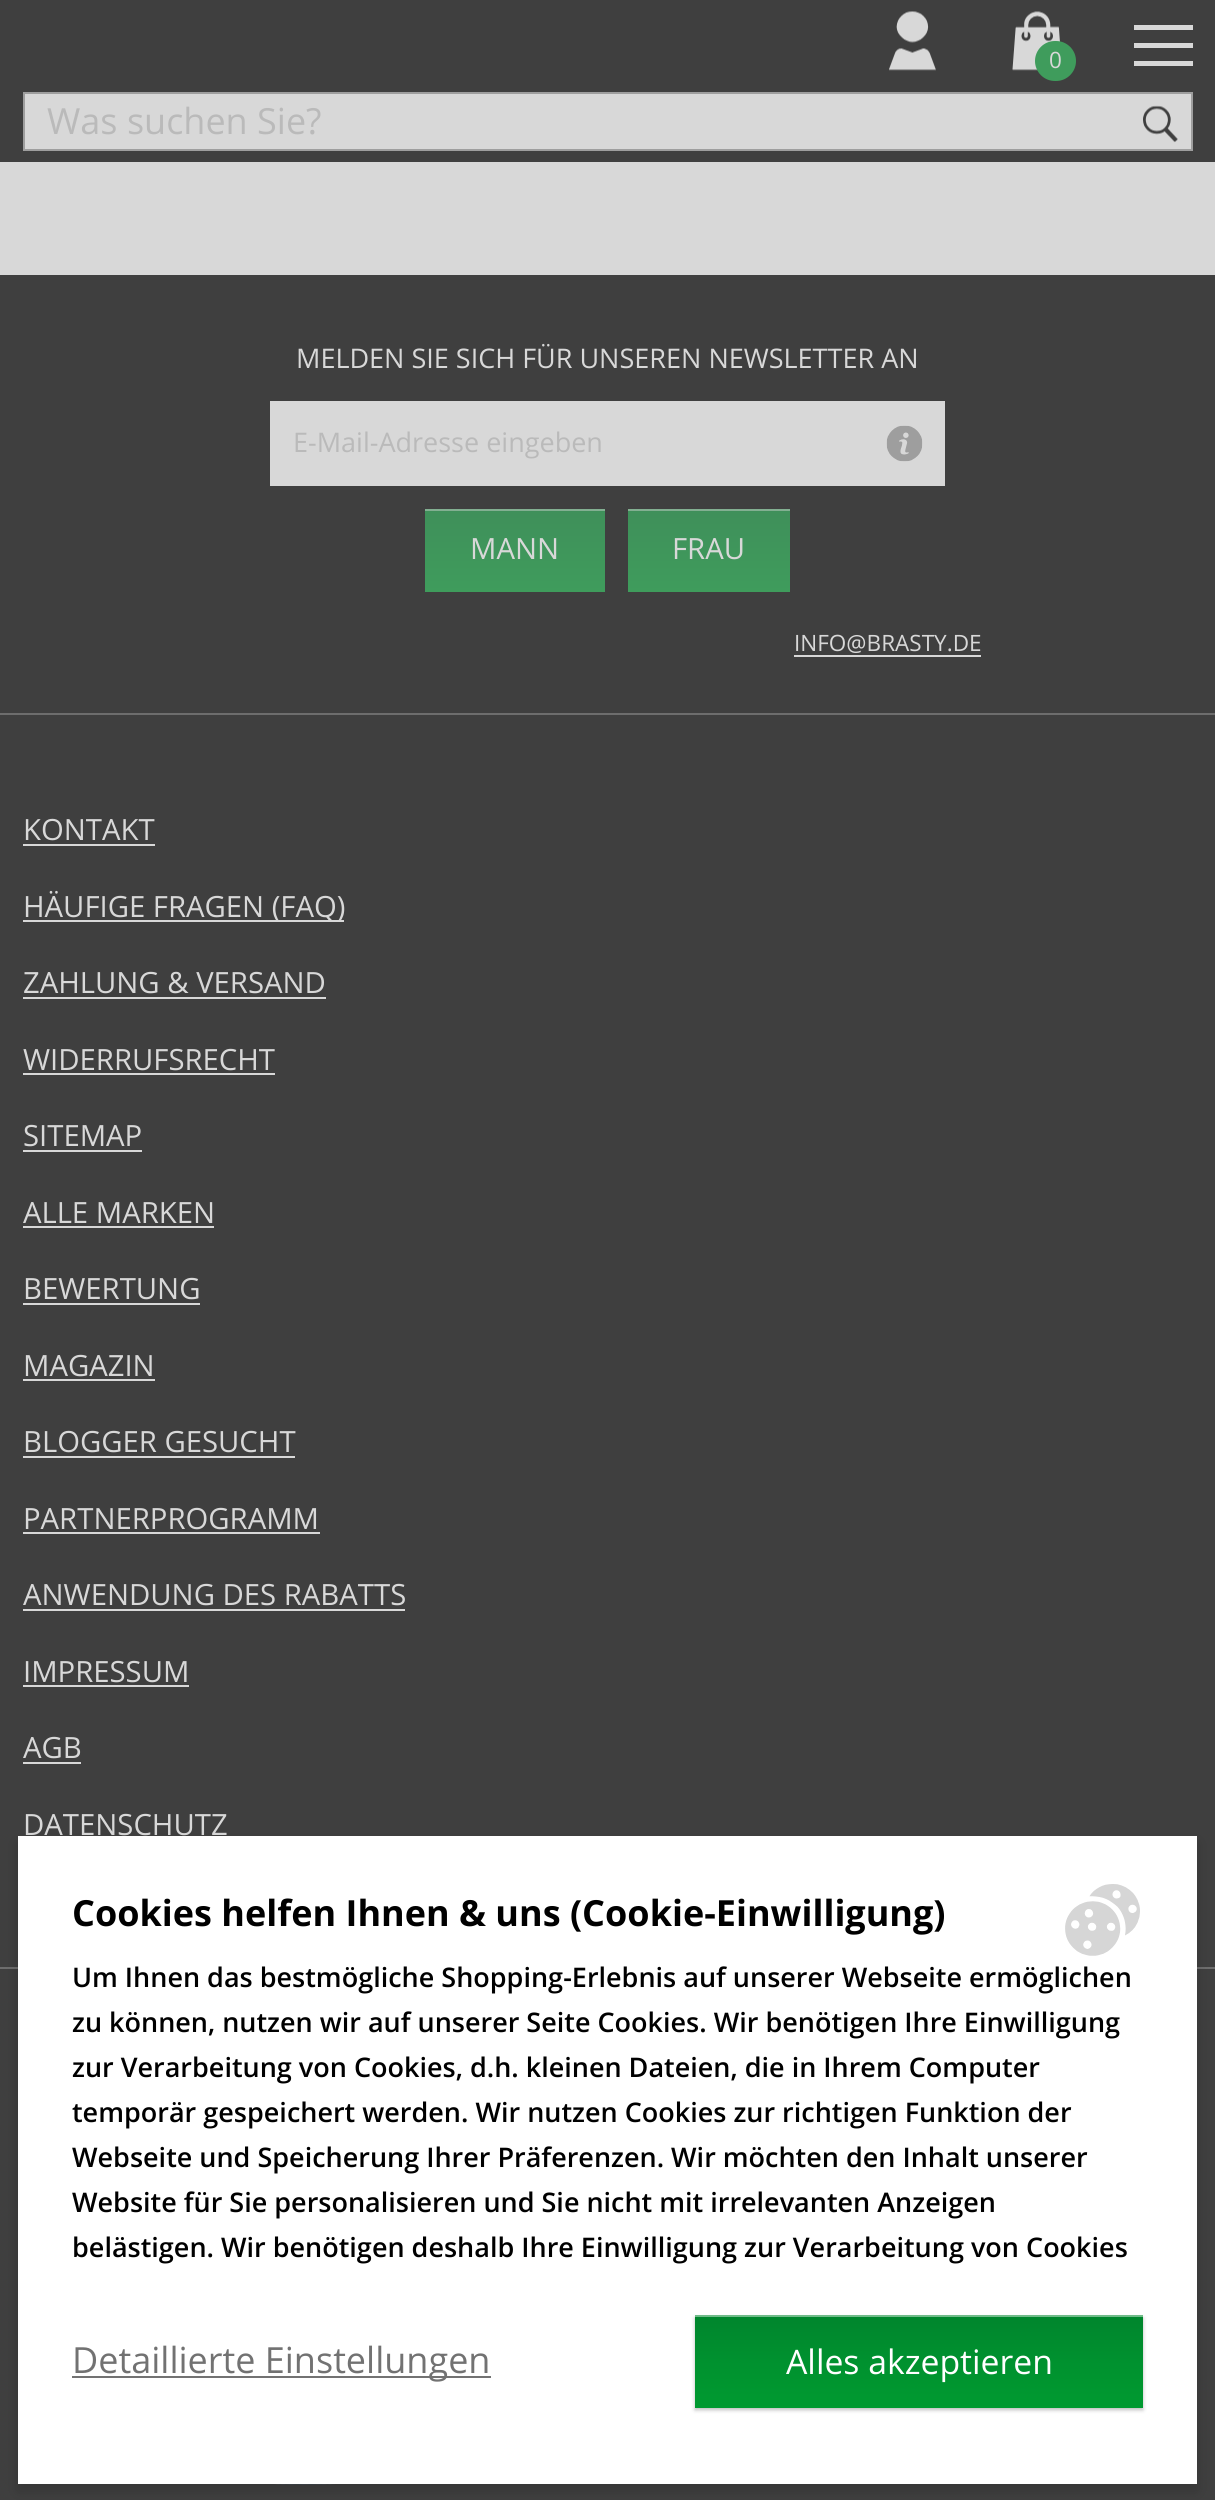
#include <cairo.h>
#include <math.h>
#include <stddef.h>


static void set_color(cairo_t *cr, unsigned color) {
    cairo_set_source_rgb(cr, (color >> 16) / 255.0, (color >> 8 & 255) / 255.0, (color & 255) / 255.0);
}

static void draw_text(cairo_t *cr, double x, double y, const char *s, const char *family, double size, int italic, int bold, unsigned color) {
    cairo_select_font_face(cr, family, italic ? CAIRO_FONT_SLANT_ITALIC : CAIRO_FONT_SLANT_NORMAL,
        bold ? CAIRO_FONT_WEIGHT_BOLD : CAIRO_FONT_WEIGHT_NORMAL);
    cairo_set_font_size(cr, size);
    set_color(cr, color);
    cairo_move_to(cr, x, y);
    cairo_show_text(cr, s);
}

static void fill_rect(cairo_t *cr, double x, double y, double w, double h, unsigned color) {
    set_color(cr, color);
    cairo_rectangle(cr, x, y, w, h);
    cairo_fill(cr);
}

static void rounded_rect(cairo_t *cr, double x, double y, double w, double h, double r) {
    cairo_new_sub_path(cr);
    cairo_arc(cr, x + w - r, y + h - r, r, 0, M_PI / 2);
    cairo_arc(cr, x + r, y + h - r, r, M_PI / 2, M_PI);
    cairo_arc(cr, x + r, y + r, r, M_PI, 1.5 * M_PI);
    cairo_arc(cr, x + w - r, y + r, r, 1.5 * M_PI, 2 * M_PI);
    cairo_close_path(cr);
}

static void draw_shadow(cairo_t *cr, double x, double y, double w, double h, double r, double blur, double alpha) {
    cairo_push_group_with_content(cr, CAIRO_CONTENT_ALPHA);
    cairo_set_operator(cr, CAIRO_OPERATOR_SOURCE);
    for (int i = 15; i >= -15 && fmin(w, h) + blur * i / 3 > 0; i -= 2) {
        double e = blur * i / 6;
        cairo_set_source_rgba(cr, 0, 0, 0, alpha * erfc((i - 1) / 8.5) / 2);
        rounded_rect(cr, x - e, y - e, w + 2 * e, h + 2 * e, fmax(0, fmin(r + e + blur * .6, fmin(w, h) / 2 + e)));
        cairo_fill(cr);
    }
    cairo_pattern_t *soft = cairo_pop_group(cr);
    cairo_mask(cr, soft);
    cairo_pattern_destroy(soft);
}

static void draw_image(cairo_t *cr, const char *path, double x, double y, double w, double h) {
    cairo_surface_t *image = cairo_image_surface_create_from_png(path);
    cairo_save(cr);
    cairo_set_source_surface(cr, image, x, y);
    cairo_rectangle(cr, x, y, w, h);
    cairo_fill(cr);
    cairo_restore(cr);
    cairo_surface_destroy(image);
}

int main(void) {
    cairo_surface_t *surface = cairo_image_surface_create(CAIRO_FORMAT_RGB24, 1215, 2500);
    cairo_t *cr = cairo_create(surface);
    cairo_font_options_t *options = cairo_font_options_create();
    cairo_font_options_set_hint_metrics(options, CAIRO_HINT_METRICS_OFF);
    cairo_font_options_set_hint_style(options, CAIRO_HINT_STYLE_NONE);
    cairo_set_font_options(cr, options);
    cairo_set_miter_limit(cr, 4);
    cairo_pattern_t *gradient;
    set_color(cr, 0xD8D8D8);
    cairo_paint(cr);
    fill_rect(cr, 0, 0, 1215, 162, 0x3F3F3F);
    draw_image(cr, "assets/img1.png", 889, 11, 47, 60);
    draw_image(cr, "assets/img2.png", 1012, 11, 48, 60);
    set_color(cr, 0x3F9C5C);
    rounded_rect(cr, 1035, 41, 41, 40, 20);
    cairo_fill(cr);
    draw_text(cr, 1049, 68, "0", "Open Sans", 22.5, 0, 0, 0xD8D8D8);
    fill_rect(cr, 1134, 43, 59, 5, 0xD8D8D8);
    fill_rect(cr, 1134, 25, 59, 5, 0xD8D8D8);
    fill_rect(cr, 1134, 61, 59, 5, 0xD8D8D8);
    cairo_rectangle(cr, 24, 93, 1168, 57);
    cairo_fill_preserve(cr);
    set_color(cr, 0x9E9E9E);
    cairo_stroke(cr);
    draw_text(cr, 47, 134, "Was suchen Sie?", "Open Sans", 36, 0, 0, 0xBABABA);
    draw_image(cr, "assets/img3.png", 1143, 105, 35, 38);
    fill_rect(cr, 0, 275, 1215, 2225, 0x3F3F3F);
    fill_rect(cr, 0, 713, 1215, 2, 0x6D6D6D);
    draw_text(cr, 296, 368, "MELDEN SIE SICH FÜR UNSEREN NEWSLETTER AN", "Open Sans", 27, 0, 0, 0xD8D8D8);
    fill_rect(cr, 270, 401, 675, 85, 0xD8D8D8);
    draw_text(cr, 293, 452, "E-Mail-Adresse eingeben", "Open Sans", 27, 0, 0, 0xBABABA);
    draw_image(cr, "assets/img4.png", 886, 425, 37, 37);
    gradient = cairo_pattern_create_linear(515, 509, 515, 675);
    cairo_pattern_add_color_stop_rgba(gradient, 0, 0.247, 0.561, 0.353, 1);
    cairo_pattern_add_color_stop_rgba(gradient, 0.25, 0.247, 0.588, 0.357, 1);
    cairo_pattern_add_color_stop_rgba(gradient, 0.5, 0.247, 0.612, 0.361, 1);
    cairo_set_source(cr, gradient);
    cairo_pattern_destroy(gradient);
    cairo_rectangle(cr, 425, 511, 180, 81);
    cairo_fill(cr);
    fill_rect(cr, 425, 509, 180, 2, 0x82AF91);
    draw_text(cr, 470, 559, "MANN", "Open Sans", 29.25, 0, 0, 0xD8D8D8);
    gradient = cairo_pattern_create_linear(709, 509, 709, 675);
    cairo_pattern_add_color_stop_rgba(gradient, 0, 0.247, 0.561, 0.353, 1);
    cairo_pattern_add_color_stop_rgba(gradient, 0.25, 0.247, 0.588, 0.357, 1);
    cairo_pattern_add_color_stop_rgba(gradient, 0.5, 0.247, 0.612, 0.361, 1);
    cairo_set_source(cr, gradient);
    cairo_pattern_destroy(gradient);
    cairo_rectangle(cr, 628, 511, 162, 81);
    cairo_fill(cr);
    fill_rect(cr, 628, 509, 162, 2, 0x82AF91);
    draw_text(cr, 672, 559, "FRAU", "Open Sans", 29.25, 0, 0, 0xD8D8D8);
    draw_text(cr, 794, 651, "INFO@BRASTY.DE", "Open Sans", 22.5, 0, 0, 0xD8D8D8);
    fill_rect(cr, 794, 655, 187, 2, 0xD8D8D8);
    fill_rect(cr, 0, 1967, 1215, 2, 0x6D6D6D);
    draw_text(cr, 23, 840, "KONTAKT", "Open Sans", 29.25, 0, 0, 0xD8D8D8);
    fill_rect(cr, 23, 844, 132, 2, 0xD8D8D8);
    fill_rect(cr, 23, 920, 321, 2, 0xD8D8D8);
    draw_text(cr, 23, 917, "HÄUFIGE FRAGEN (FAQ)", "Open Sans", 29.25, 0, 0, 0xD8D8D8);
    draw_text(cr, 23, 993, "ZAHLUNG & VERSAND", "Open Sans", 29.25, 0, 0, 0xD8D8D8);
    fill_rect(cr, 23, 997, 303, 2, 0xD8D8D8);
    draw_text(cr, 23, 1070, "WIDERRUFSRECHT", "Open Sans", 29.25, 0, 0, 0xD8D8D8);
    fill_rect(cr, 23, 1073, 252, 2, 0xD8D8D8);
    draw_text(cr, 23, 1146, "SITEMAP", "Open Sans", 29.25, 0, 0, 0xD8D8D8);
    fill_rect(cr, 23, 1150, 119, 2, 0xD8D8D8);
    draw_text(cr, 23, 1223, "ALLE MARKEN", "Open Sans", 29.25, 0, 0, 0xD8D8D8);
    fill_rect(cr, 23, 1226, 191, 2, 0xD8D8D8);
    draw_text(cr, 23, 1299, "BEWERTUNG", "Open Sans", 29.25, 0, 0, 0xD8D8D8);
    fill_rect(cr, 23, 1303, 177, 2, 0xD8D8D8);
    draw_text(cr, 23, 1376, "MAGAZIN", "Open Sans", 29.25, 0, 0, 0xD8D8D8);
    fill_rect(cr, 23, 1379, 132, 2, 0xD8D8D8);
    draw_text(cr, 23, 1452, "BLOGGER GESUCHT", "Open Sans", 29.25, 0, 0, 0xD8D8D8);
    fill_rect(cr, 23, 1456, 272, 2, 0xD8D8D8);
    draw_text(cr, 23, 1529, "PARTNERPROGRAMM", "Open Sans", 29.25, 0, 0, 0xD8D8D8);
    fill_rect(cr, 23, 1532, 297, 2, 0xD8D8D8);
    draw_text(cr, 23, 1605, "ANWENDUNG DES RABATTS", "Open Sans", 29.25, 0, 0, 0xD8D8D8);
    fill_rect(cr, 23, 1609, 382, 2, 0xD8D8D8);
    draw_text(cr, 23, 1682, "IMPRESSUM", "Open Sans", 29.25, 0, 0, 0xD8D8D8);
    fill_rect(cr, 23, 1685, 166, 2, 0xD8D8D8);
    draw_text(cr, 23, 1758, "AGB", "Open Sans", 29.25, 0, 0, 0xD8D8D8);
    fill_rect(cr, 23, 1762, 58, 2, 0xD8D8D8);
    draw_text(cr, 23, 1835, "DATENSCHUTZ", "Open Sans", 29.25, 0, 0, 0xD8D8D8);
    draw_image(cr, "assets/img5.png", 274, 2484, 61, 1);
    set_color(cr, 0x000000);
    draw_shadow(cr, 18, 1843, 1179, 648, 0, 7, 0.16);
    fill_rect(cr, 18, 1836, 1179, 648, 0xFFFFFF);
    draw_text(cr, 72, 1926, "Cookies helfen Ihnen & uns (Cookie-Einwilligung)", "Open Sans", 36, 0, 1, 0x000000);
    draw_image(cr, "assets/img6.png", 1065, 1884, 75, 72);
    draw_text(cr, 72, 1987, "Um Ihnen das bestmögliche Shopping-Erlebnis auf unserer Webseite ermöglichen", "Open Sans SemiBold", 27, 0, 0, 0x000000);
    draw_text(cr, 72, 2032, "zu können, nutzen wir auf unserer Seite Cookies. Wir benötigen Ihre Einwilligung", "Open Sans SemiBold", 27, 0, 0, 0x000000);
    draw_text(cr, 72, 2077, "zur Verarbeitung von Cookies, d.h. kleinen Dateien, die in Ihrem Computer", "Open Sans SemiBold", 27, 0, 0, 0x000000);
    draw_text(cr, 72, 2122, "temporär gespeichert werden. Wir nutzen Cookies zur richtigen Funktion der", "Open Sans SemiBold", 27, 0, 0, 0x000000);
    draw_text(cr, 72, 2167, "Webseite und Speicherung Ihrer Präferenzen. Wir möchten den Inhalt unserer", "Open Sans SemiBold", 27, 0, 0, 0x000000);
    draw_text(cr, 72, 2212, "Website für Sie personalisieren und Sie nicht mit irrelevanten Anzeigen", "Open Sans SemiBold", 27, 0, 0, 0x000000);
    draw_text(cr, 72, 2257, "belästigen. Wir benötigen deshalb Ihre Einwilligung zur Verarbeitung von Cookies", "Open Sans SemiBold", 27, 0, 0, 0x000000);
    fill_rect(cr, 72, 2376, 419, 2, 0x727272);
    draw_text(cr, 72, 2373, "Detaillierte Einstellungen", "Open Sans", 36, 0, 0, 0x727272);
    set_color(cr, 0x000000);
    draw_shadow(cr, 695, 2318, 448, 92, 0, 2, 0.26);
    gradient = cairo_pattern_create_linear(919, 2315, 919, 2500);
    cairo_pattern_add_color_stop_rgba(gradient, 0, 0, 0.522, 0.176, 1);
    cairo_pattern_add_color_stop_rgba(gradient, 0.25, 0, 0.569, 0.184, 1);
    cairo_pattern_add_color_stop_rgba(gradient, 0.5, 0, 0.604, 0.188, 1);
    cairo_set_source(cr, gradient);
    cairo_pattern_destroy(gradient);
    cairo_rectangle(cr, 695, 2317, 448, 91);
    cairo_fill(cr);
    fill_rect(cr, 695, 2315, 448, 2, 0x70BB89);
    draw_text(cr, 786, 2374, "Alles akzeptieren", "Open Sans", 33.75, 0, 0, 0xFFFFFF);
    cairo_surface_write_to_png(surface, "output.png");
    cairo_font_options_destroy(options);
    cairo_destroy(cr);
    cairo_surface_destroy(surface);
    return 0;
}
